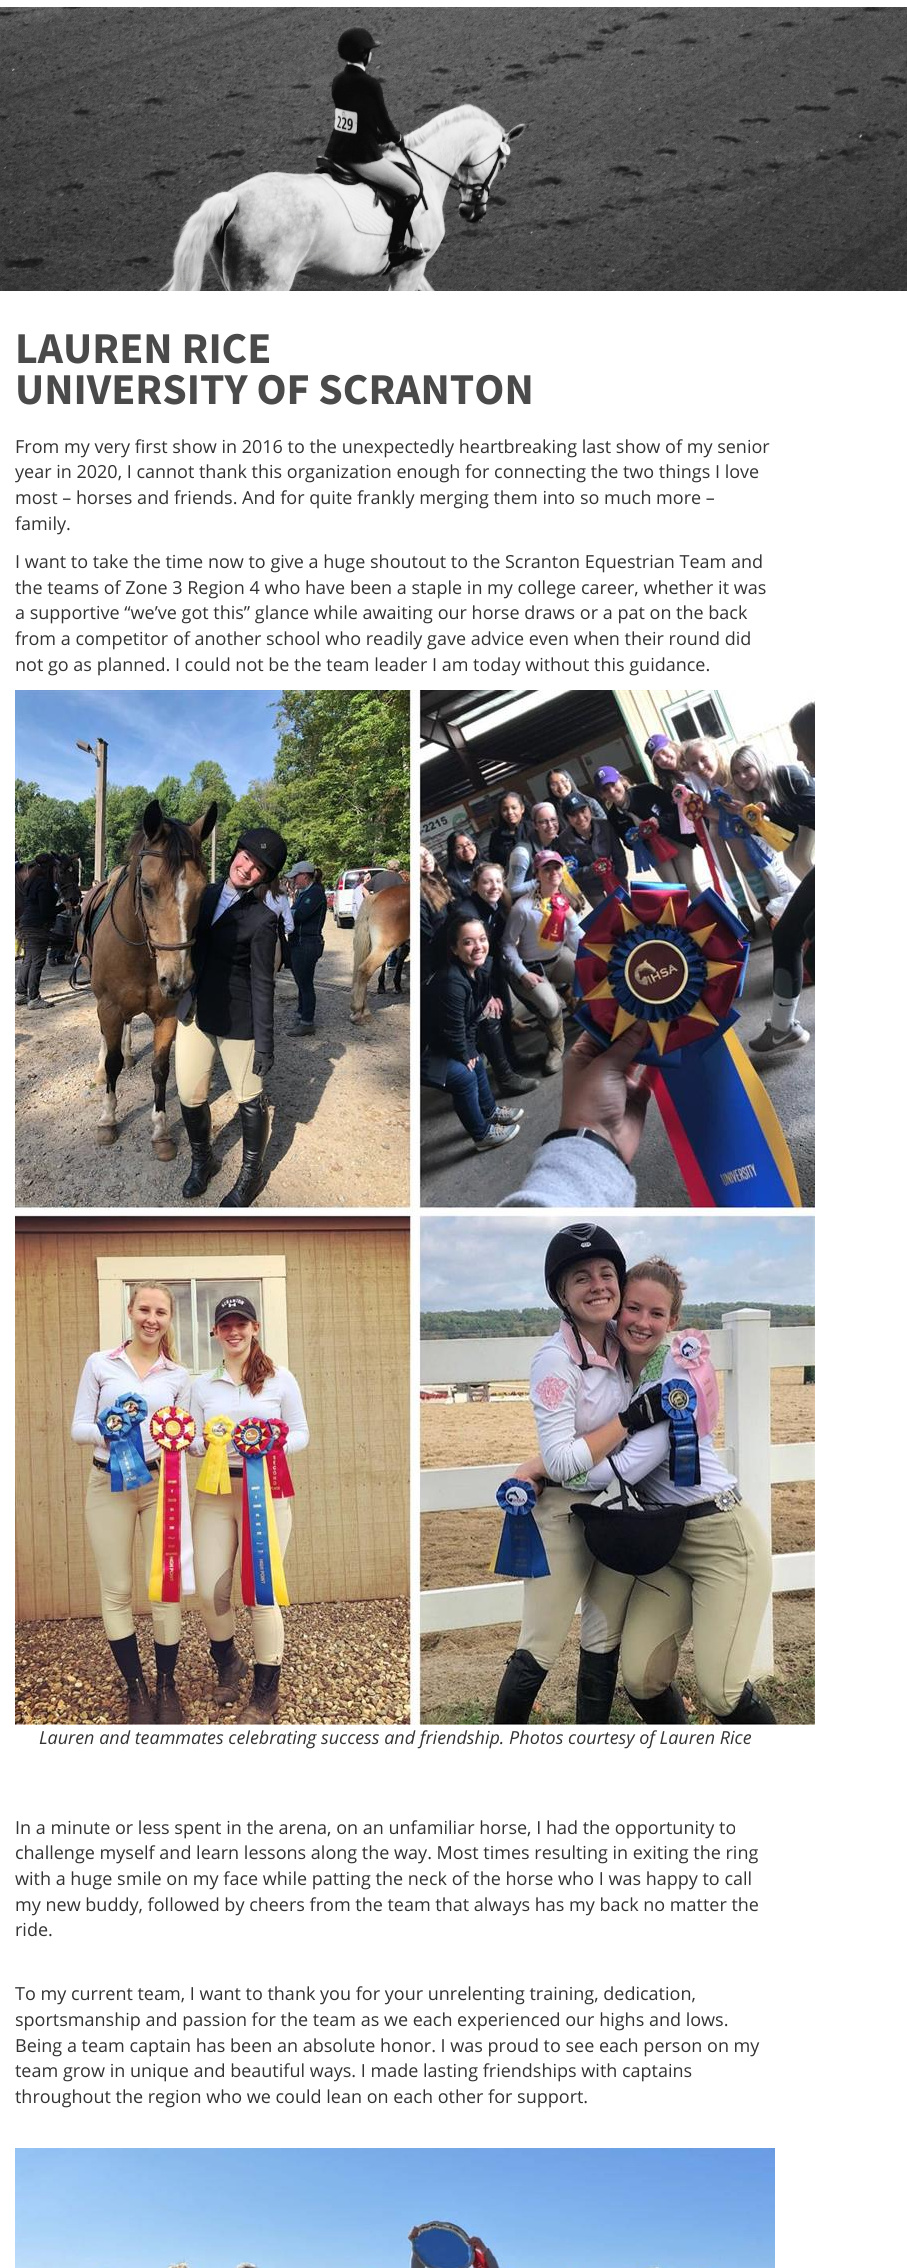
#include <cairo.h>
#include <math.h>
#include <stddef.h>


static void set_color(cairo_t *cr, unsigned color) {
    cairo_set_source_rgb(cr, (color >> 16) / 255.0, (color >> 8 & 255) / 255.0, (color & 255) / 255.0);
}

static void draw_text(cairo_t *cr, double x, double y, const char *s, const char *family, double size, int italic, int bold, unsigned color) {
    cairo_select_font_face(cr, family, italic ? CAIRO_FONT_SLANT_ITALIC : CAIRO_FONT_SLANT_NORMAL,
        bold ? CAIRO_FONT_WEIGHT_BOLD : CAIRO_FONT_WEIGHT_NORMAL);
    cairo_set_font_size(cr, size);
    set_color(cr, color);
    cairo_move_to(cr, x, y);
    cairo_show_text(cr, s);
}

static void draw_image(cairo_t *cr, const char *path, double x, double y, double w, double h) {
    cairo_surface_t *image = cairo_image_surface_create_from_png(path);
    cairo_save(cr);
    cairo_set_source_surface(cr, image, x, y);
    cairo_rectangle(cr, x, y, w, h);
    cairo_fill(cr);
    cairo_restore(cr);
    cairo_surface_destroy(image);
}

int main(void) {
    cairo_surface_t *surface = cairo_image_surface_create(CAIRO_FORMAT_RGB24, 907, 2268);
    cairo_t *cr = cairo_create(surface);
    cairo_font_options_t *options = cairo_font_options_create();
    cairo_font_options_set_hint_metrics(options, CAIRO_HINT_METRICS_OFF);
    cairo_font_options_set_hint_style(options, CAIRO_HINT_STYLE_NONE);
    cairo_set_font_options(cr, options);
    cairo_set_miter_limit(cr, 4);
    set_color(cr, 0xFFFFFF);
    cairo_paint(cr);
    draw_image(cr, "assets/img1.png", 0, 7, 907, 284);
    draw_text(cr, 15, 363, "LAUREN RICE", "Source Sans Pro", 44, 0, 1, 0x4A4A4A);
    draw_text(cr, 15, 404, "UNIVERSITY OF SCRANTON", "Source Sans Pro", 44, 0, 1, 0x4A4A4A);
    draw_text(cr, 15, 453, "From my very first show in 2016 to the unexpectedly heartbreaking last show of my senior", "Open Sans", 18, 0, 0, 0x333333);
    draw_text(cr, 15, 478, "year in 2020, I cannot thank this organization enough for connecting the two things I love", "Open Sans", 18, 0, 0, 0x333333);
    draw_text(cr, 15, 504, "most – horses and friends. And for quite frankly merging them into so much more –", "Open Sans", 18, 0, 0, 0x333333);
    draw_text(cr, 15, 530, "family.", "Open Sans", 18, 0, 0, 0x333333);
    draw_text(cr, 15, 568, "I want to take the time now to give a huge shoutout to the Scranton Equestrian Team and", "Open Sans", 18, 0, 0, 0x333333);
    draw_text(cr, 15, 594, "the teams of Zone 3 Region 4 who have been a staple in my college career, whether it was", "Open Sans", 18, 0, 0, 0x333333);
    draw_text(cr, 15, 619, "a supportive “we’ve got this” glance while awaiting our horse draws or a pat on the back", "Open Sans", 18, 0, 0, 0x333333);
    draw_text(cr, 15, 645, "from a competitor of another school who readily gave advice even when their round did", "Open Sans", 18, 0, 0, 0x333333);
    draw_text(cr, 15, 671, "not go as planned. I could not be the team leader I am today without this guidance.", "Open Sans", 18, 0, 0, 0x333333);
    draw_image(cr, "assets/img2.png", 15, 690, 800, 1035);
    draw_text(cr, 39, 1744, "Lauren and teammates celebrating success and friendship. Photos courtesy of Lauren Rice", "Open Sans", 18, 1, 0, 0x333333);
    draw_text(cr, 15, 1834, "In a minute or less spent in the arena, on an unfamiliar horse, I had the opportunity to", "Open Sans", 18, 0, 0, 0x333333);
    draw_text(cr, 15, 1859, "challenge myself and learn lessons along the way. Most times resulting in exiting the ring", "Open Sans", 18, 0, 0, 0x333333);
    draw_text(cr, 15, 1885, "with a huge smile on my face while patting the neck of the horse who I was happy to call", "Open Sans", 18, 0, 0, 0x333333);
    draw_text(cr, 15, 1911, "my new buddy, followed by cheers from the team that always has my back no matter the", "Open Sans", 18, 0, 0, 0x333333);
    draw_text(cr, 15, 1936, "ride.", "Open Sans", 18, 0, 0, 0x333333);
    draw_text(cr, 15, 2000, "To my current team, I want to thank you for your unrelenting training, dedication,", "Open Sans", 18, 0, 0, 0x333333);
    draw_text(cr, 15, 2026, "sportsmanship and passion for the team as we each experienced our highs and lows.", "Open Sans", 18, 0, 0, 0x333333);
    draw_text(cr, 15, 2052, "Being a team captain has been an absolute honor. I was proud to see each person on my", "Open Sans", 18, 0, 0, 0x333333);
    draw_text(cr, 15, 2077, "team grow in unique and beautiful ways. I made lasting friendships with captains", "Open Sans", 18, 0, 0, 0x333333);
    draw_text(cr, 15, 2103, "throughout the region who we could lean on each other for support.", "Open Sans", 18, 0, 0, 0x333333);
    draw_image(cr, "assets/img3.png", 15, 2148, 760, 120);
    cairo_surface_write_to_png(surface, "output.png");
    cairo_font_options_destroy(options);
    cairo_destroy(cr);
    cairo_surface_destroy(surface);
    return 0;
}
